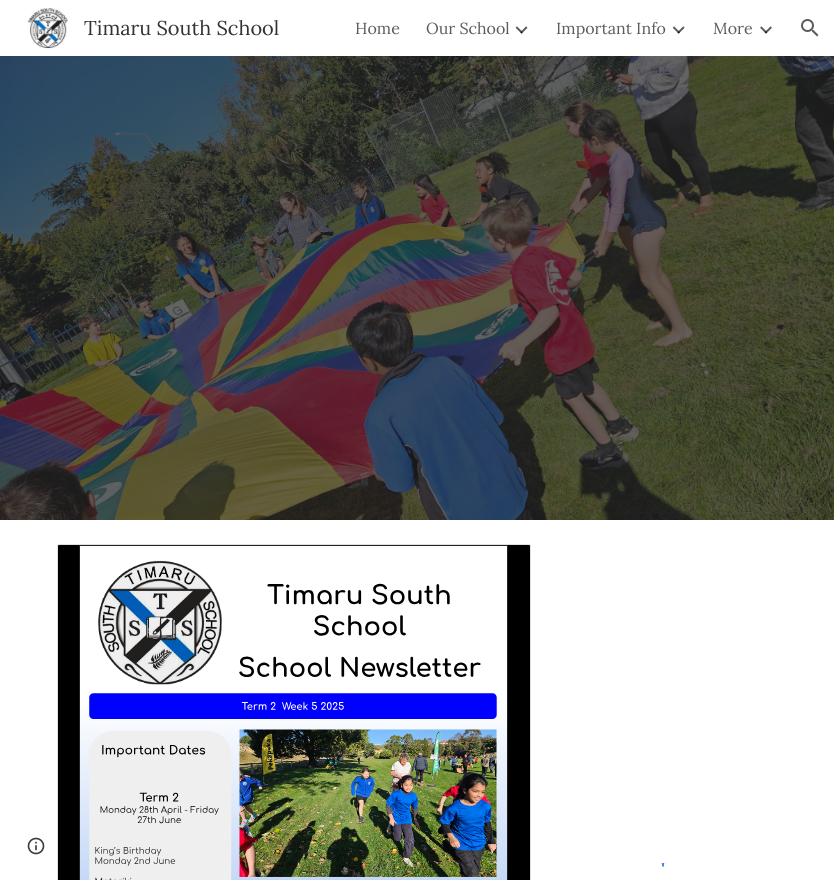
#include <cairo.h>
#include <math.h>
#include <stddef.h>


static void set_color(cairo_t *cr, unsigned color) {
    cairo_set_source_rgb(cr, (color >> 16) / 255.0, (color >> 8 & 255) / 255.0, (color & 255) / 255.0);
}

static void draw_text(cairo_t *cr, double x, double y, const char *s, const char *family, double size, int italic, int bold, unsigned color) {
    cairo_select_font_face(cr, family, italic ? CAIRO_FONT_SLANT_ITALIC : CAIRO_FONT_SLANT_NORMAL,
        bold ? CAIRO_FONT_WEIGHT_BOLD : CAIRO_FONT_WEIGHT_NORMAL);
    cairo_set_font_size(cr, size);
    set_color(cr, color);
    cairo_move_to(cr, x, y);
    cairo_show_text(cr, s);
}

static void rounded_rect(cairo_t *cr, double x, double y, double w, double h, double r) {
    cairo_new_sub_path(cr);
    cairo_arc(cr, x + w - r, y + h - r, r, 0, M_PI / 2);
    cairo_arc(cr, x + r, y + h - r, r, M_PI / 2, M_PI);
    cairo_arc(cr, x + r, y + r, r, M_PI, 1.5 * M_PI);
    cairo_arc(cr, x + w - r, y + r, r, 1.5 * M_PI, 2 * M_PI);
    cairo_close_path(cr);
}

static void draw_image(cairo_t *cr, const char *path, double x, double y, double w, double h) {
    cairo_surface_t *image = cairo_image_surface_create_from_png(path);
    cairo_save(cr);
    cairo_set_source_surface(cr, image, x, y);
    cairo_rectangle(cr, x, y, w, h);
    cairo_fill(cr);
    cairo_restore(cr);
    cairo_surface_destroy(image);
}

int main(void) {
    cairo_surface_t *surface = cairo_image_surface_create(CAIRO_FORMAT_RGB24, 834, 880);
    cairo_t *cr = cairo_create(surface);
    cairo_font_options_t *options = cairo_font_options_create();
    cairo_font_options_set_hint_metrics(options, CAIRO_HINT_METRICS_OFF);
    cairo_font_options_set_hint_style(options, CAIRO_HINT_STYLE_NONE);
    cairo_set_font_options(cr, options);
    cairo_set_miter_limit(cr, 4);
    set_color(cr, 0xFFFFFF);
    cairo_paint(cr);
    draw_image(cr, "assets/img1.png", 27, 8, 41, 41);
    draw_text(cr, 84, 35, "Timaru South School", "Lora", 20, 0, 0, 0x333333);
    draw_text(cr, 355, 34, "Home", "Lora", 16, 0, 0, 0x5C5C5C);
    draw_text(cr, 426, 34, "Our School", "Lora", 16, 0, 0, 0x5C5C5C);
    draw_image(cr, "assets/img2.png", 515, 26, 13, 8);
    cairo_save(cr);
    cairo_rectangle(cr, 556, 18, 110, 20);
    cairo_clip(cr);
    draw_text(cr, 556, 34, "Important Info", "Lora", 16, 0, 0, 0x5C5C5C);
    cairo_restore(cr);
    draw_image(cr, "assets/img3.png", 672, 26, 13, 8);
    draw_text(cr, 713, 34, "More", "Lora", 16, 0, 0, 0x5C5C5C);
    draw_image(cr, "assets/img4.png", 760, 26, 12, 8);
    draw_image(cr, "assets/img5.png", 801, 19, 18, 18);
    draw_image(cr, "assets/img6.png", 0, 56, 834, 464);
    rounded_rect(cr, 57.5, 544.5, 473, 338, 1.5);
    set_color(cr, 0xE0E0E0);
    cairo_set_line_width(cr, 1);
    cairo_stroke(cr);
    draw_image(cr, "assets/img7.png", 58, 545, 472, 335);
    cairo_save(cr);
    cairo_rectangle(cr, 649, 863, 14, 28);
    cairo_clip(cr);
    cairo_new_path(cr);
    cairo_move_to(cr, 662, 864);
    cairo_curve_to(cr, 678.5, 862.5, 680.5, 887.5, 664, 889);
    set_color(cr, 0x4486F4);
    cairo_set_line_width(cr, 3);
    cairo_stroke(cr);
    cairo_restore(cr);
    cairo_save(cr);
    cairo_rectangle(cr, 662, 863, 2, 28);
    cairo_clip(cr);
    cairo_new_path(cr);
    cairo_move_to(cr, 654, 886);
    cairo_curve_to(cr, 651, 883, 650, 878.5, 650.5, 874.5);
    cairo_curve_to(cr, 653.5, 860, 675.5, 862, 675.5, 877);
    cairo_curve_to(cr, 675.5, 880.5, 674, 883.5, 672, 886);
    set_color(cr, 0x4486F4);
    cairo_set_line_width(cr, 3);
    cairo_stroke(cr);
    cairo_restore(cr);
    cairo_save(cr);
    cairo_rectangle(cr, 663, 863, 14, 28);
    cairo_clip(cr);
    cairo_new_path(cr);
    cairo_move_to(cr, 662, 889);
    cairo_curve_to(cr, 645.5, 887.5, 647.5, 862.5, 664, 864);
    set_color(cr, 0x4486F4);
    cairo_set_line_width(cr, 3);
    cairo_stroke(cr);
    cairo_restore(cr);
    cairo_save(cr);
    cairo_rectangle(cr, 649, 863, 14, 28);
    cairo_clip(cr);
    cairo_new_path(cr);
    cairo_move_to(cr, 662, 864);
    cairo_curve_to(cr, 678.5, 862.5, 680.5, 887.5, 664, 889);
    set_color(cr, 0x4486F4);
    cairo_set_line_width(cr, 3);
    cairo_stroke(cr);
    cairo_restore(cr);
    cairo_save(cr);
    cairo_rectangle(cr, 662, 863, 2, 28);
    cairo_clip(cr);
    cairo_new_path(cr);
    cairo_move_to(cr, 654, 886);
    cairo_curve_to(cr, 651, 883, 650, 878.5, 650.5, 874.5);
    cairo_curve_to(cr, 653.5, 860, 675.5, 862, 675.5, 877);
    cairo_curve_to(cr, 675.5, 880.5, 674, 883.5, 672, 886);
    set_color(cr, 0x4486F4);
    cairo_set_line_width(cr, 3);
    cairo_stroke(cr);
    cairo_restore(cr);
    cairo_save(cr);
    cairo_rectangle(cr, 663, 863, 14, 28);
    cairo_clip(cr);
    cairo_new_path(cr);
    cairo_move_to(cr, 662, 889);
    cairo_curve_to(cr, 645.5, 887.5, 647.5, 862.5, 664, 864);
    set_color(cr, 0x4486F4);
    cairo_set_line_width(cr, 3);
    cairo_stroke(cr);
    cairo_restore(cr);
    cairo_save(cr);
    cairo_rectangle(cr, 649, 863, 14, 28);
    cairo_clip(cr);
    cairo_new_path(cr);
    cairo_move_to(cr, 662, 864);
    cairo_curve_to(cr, 678.5, 862.5, 680.5, 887.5, 664, 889);
    set_color(cr, 0x4486F4);
    cairo_set_line_width(cr, 3);
    cairo_stroke(cr);
    cairo_restore(cr);
    cairo_save(cr);
    cairo_rectangle(cr, 662, 863, 2, 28);
    cairo_clip(cr);
    cairo_new_path(cr);
    cairo_move_to(cr, 654, 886);
    cairo_curve_to(cr, 651, 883, 650, 878.5, 650.5, 874.5);
    cairo_curve_to(cr, 653.5, 860, 675.5, 862, 675.5, 877);
    cairo_curve_to(cr, 675.5, 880.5, 674, 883.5, 672, 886);
    set_color(cr, 0x4486F4);
    cairo_set_line_width(cr, 3);
    cairo_stroke(cr);
    cairo_restore(cr);
    cairo_save(cr);
    cairo_rectangle(cr, 663, 863, 14, 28);
    cairo_clip(cr);
    cairo_new_path(cr);
    cairo_move_to(cr, 662, 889);
    cairo_curve_to(cr, 645.5, 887.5, 647.5, 862.5, 664, 864);
    set_color(cr, 0x4486F4);
    cairo_set_line_width(cr, 3);
    cairo_stroke(cr);
    cairo_restore(cr);
    cairo_save(cr);
    cairo_rectangle(cr, 649, 863, 14, 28);
    cairo_clip(cr);
    cairo_new_path(cr);
    cairo_move_to(cr, 662, 864);
    cairo_curve_to(cr, 678.5, 862.5, 680.5, 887.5, 664, 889);
    set_color(cr, 0x4486F4);
    cairo_set_line_width(cr, 3);
    cairo_stroke(cr);
    cairo_restore(cr);
    cairo_save(cr);
    cairo_rectangle(cr, 662, 863, 2, 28);
    cairo_clip(cr);
    cairo_new_path(cr);
    cairo_move_to(cr, 654, 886);
    cairo_curve_to(cr, 651, 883, 650, 878.5, 650.5, 874.5);
    cairo_curve_to(cr, 653.5, 860, 675.5, 862, 675.5, 877);
    cairo_curve_to(cr, 675.5, 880.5, 674, 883.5, 672, 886);
    set_color(cr, 0x4486F4);
    cairo_set_line_width(cr, 3);
    cairo_stroke(cr);
    cairo_restore(cr);
    cairo_save(cr);
    cairo_rectangle(cr, 663, 863, 14, 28);
    cairo_clip(cr);
    cairo_new_path(cr);
    cairo_move_to(cr, 662, 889);
    cairo_curve_to(cr, 645.5, 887.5, 647.5, 862.5, 664, 864);
    set_color(cr, 0x4486F4);
    cairo_set_line_width(cr, 3);
    cairo_stroke(cr);
    cairo_restore(cr);
    draw_image(cr, "assets/img8.png", 27, 837, 18, 18);
    cairo_surface_write_to_png(surface, "output.png");
    cairo_font_options_destroy(options);
    cairo_destroy(cr);
    cairo_surface_destroy(surface);
    return 0;
}
